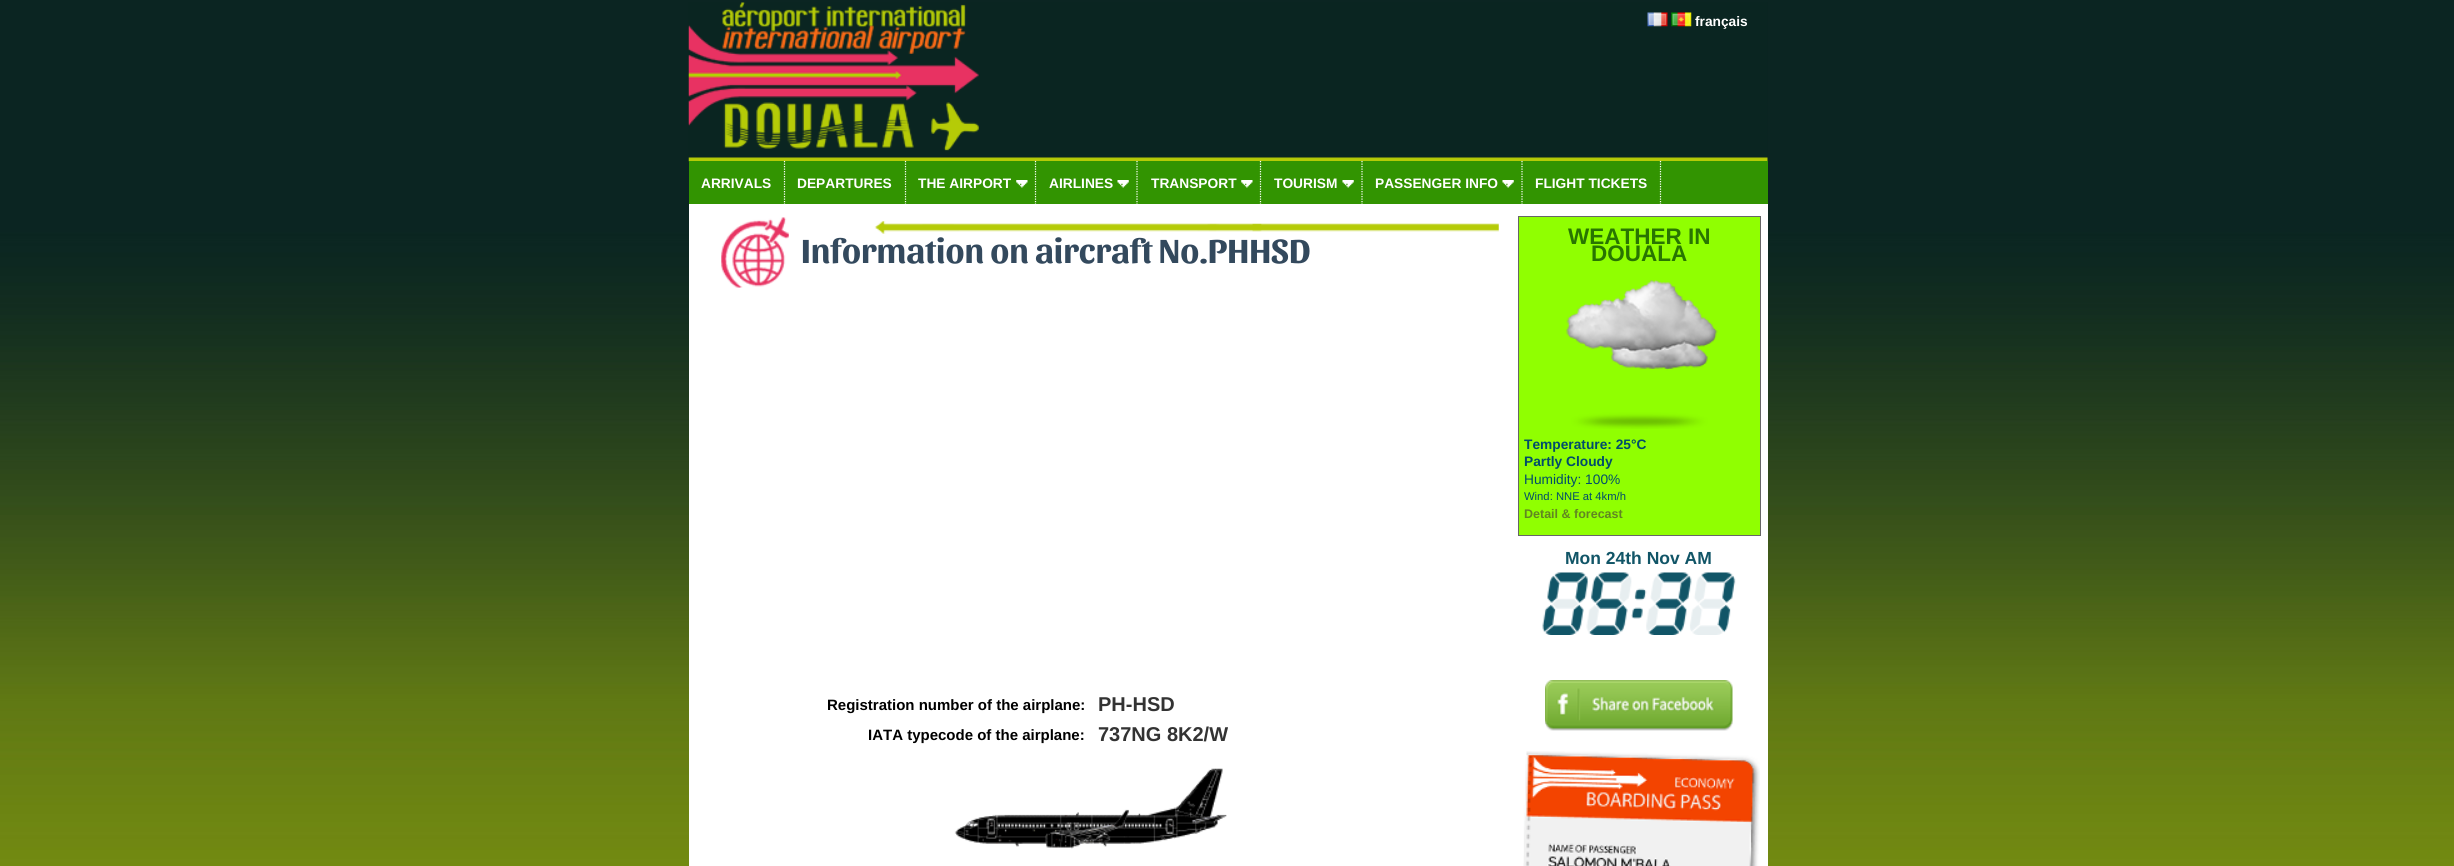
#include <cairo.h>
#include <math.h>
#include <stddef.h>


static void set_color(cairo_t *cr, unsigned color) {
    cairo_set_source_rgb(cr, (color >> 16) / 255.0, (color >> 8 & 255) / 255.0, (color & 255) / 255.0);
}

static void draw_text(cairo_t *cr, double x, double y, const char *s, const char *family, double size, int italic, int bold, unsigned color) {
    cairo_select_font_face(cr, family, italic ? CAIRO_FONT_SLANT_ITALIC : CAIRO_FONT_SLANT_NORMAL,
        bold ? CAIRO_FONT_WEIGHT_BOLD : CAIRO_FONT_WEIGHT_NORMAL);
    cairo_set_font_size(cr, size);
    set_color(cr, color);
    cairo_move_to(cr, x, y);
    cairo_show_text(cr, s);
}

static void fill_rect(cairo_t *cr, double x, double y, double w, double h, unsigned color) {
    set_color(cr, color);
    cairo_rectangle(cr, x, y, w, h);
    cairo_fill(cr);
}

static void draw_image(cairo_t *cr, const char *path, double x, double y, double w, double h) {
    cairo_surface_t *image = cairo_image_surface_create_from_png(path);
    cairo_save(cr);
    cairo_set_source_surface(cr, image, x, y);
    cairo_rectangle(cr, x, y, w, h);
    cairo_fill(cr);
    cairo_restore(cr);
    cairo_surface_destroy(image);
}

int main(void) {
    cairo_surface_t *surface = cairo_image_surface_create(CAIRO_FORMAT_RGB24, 2454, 866);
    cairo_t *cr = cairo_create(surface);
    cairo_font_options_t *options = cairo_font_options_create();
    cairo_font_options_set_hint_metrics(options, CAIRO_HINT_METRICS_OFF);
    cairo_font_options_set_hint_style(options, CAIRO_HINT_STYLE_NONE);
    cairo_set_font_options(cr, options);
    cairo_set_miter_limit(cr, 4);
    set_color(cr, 0xFFFFFF);
    cairo_paint(cr);
    draw_image(cr, "assets/img1.png", 0, 0, 2454, 866);
    draw_image(cr, "assets/img2.png", 688, 2, 1080, 160);
    draw_image(cr, "assets/img3.png", 1647, 12, 21, 15);
    draw_image(cr, "assets/img4.png", 1671, 12, 21, 15);
    draw_text(cr, 1695, 26, "français", "Liberation Sans", 13.75, 0, 1, 0xFFFFFF);
    fill_rect(cr, 689, 161, 1079, 43, 0x329401);
    cairo_new_path(cr);
    cairo_move_to(cr, 784.5, 161);
    cairo_line_to(cr, 784.5, 204);
    set_color(cr, 0xFFFFFF);
    cairo_set_line_width(cr, 1.2);
    cairo_set_dash(cr, (double[]){1.25, 1.25}, 2, 0);
    cairo_stroke(cr);
    draw_text(cr, 701, 188, "ARRIVALS", "Liberation Sans", 13.75, 0, 1, 0xFFFFFF);
    cairo_new_path(cr);
    cairo_move_to(cr, 905.5, 161);
    cairo_line_to(cr, 905.5, 204);
    cairo_stroke(cr);
    draw_text(cr, 797, 188, "DEPARTURES", "Liberation Sans", 13.75, 0, 1, 0xFFFFFF);
    cairo_new_path(cr);
    cairo_move_to(cr, 1035.5, 161);
    cairo_line_to(cr, 1035.5, 204);
    cairo_stroke(cr);
    draw_text(cr, 918, 188, "THE AIRPORT", "Liberation Sans", 13.75, 0, 1, 0xFFFFFF);
    draw_image(cr, "assets/img5.png", 1016, 180, 12, 8);
    cairo_new_path(cr);
    cairo_move_to(cr, 1137, 161);
    cairo_line_to(cr, 1137, 204);
    cairo_stroke(cr);
    draw_text(cr, 1049, 188, "AIRLINES", "Liberation Sans", 13.75, 0, 1, 0xFFFFFF);
    draw_image(cr, "assets/img6.png", 1117, 180, 12, 8);
    cairo_new_path(cr);
    cairo_move_to(cr, 1260.5, 161);
    cairo_line_to(cr, 1260.5, 204);
    cairo_stroke(cr);
    draw_text(cr, 1151, 188, "TRANSPORT", "Liberation Sans", 13.75, 0, 1, 0xFFFFFF);
    draw_image(cr, "assets/img5.png", 1241, 180, 12, 8);
    cairo_new_path(cr);
    cairo_move_to(cr, 1362, 161);
    cairo_line_to(cr, 1362, 204);
    cairo_stroke(cr);
    draw_text(cr, 1274, 188, "TOURISM", "Liberation Sans", 13.75, 0, 1, 0xFFFFFF);
    draw_image(cr, "assets/img6.png", 1342, 180, 12, 8);
    cairo_new_path(cr);
    cairo_move_to(cr, 1522, 161);
    cairo_line_to(cr, 1522, 204);
    cairo_stroke(cr);
    draw_text(cr, 1375, 188, "PASSENGER INFO", "Liberation Sans", 13.75, 0, 1, 0xFFFFFF);
    draw_image(cr, "assets/img7.png", 1502, 180, 12, 8);
    cairo_new_path(cr);
    cairo_move_to(cr, 1660.5, 161);
    cairo_line_to(cr, 1660.5, 204);
    cairo_stroke(cr);
    draw_text(cr, 1535, 188, "FLIGHT TICKETS", "Liberation Sans", 13.75, 0, 1, 0xFFFFFF);
    fill_rect(cr, 689, 204, 1079, 662, 0xFFFFFF);
    draw_image(cr, "assets/img8.png", 721, 217, 778, 71);
    draw_text(cr, 801, 263, "Information on aircraft No.PHHSD", "Sansita", 35, 0, 1, 0x33495D);
    draw_text(cr, 827, 710, "Registration number of the airplane:", "Liberation Sans", 15, 0, 1, 0x000000);
    draw_text(cr, 1098, 711, "PH-HSD", "Liberation Sans", 20, 0, 1, 0x333333);
    draw_text(cr, 868, 740, "IATA typecode of the airplane:", "Liberation Sans", 15, 0, 1, 0x000000);
    draw_text(cr, 1098, 741, "737NG 8K2/W", "Liberation Sans", 20, 0, 1, 0x333333);
    draw_image(cr, "assets/img9.png", 954, 768, 273, 81);
    set_color(cr, 0x90FF01);
    cairo_rectangle(cr, 1518.5, 216.5, 242, 319);
    cairo_fill_preserve(cr);
    set_color(cr, 0x666666);
    cairo_set_line_width(cr, 1);
    cairo_set_dash(cr, NULL, 0, 0);
    cairo_stroke(cr);
    draw_text(cr, 1568, 244, "WEATHER IN", "Liberation Sans", 22.5, 0, 1, 0x287501);
    draw_text(cr, 1591, 261, "DOUALA", "Liberation Sans", 22.5, 0, 1, 0x287501);
    draw_image(cr, "assets/img10.png", 1566, 280, 152, 149);
    draw_text(cr, 1524, 449, "Temperature: 25°C", "Liberation Sans", 13.75, 0, 1, 0x004C6C);
    draw_text(cr, 1524, 466, "Partly Cloudy", "Liberation Sans", 13.75, 0, 1, 0x004C6C);
    draw_text(cr, 1524, 484, "Humidity: 100%", "Liberation Sans", 13.75, 0, 0, 0x004C6C);
    draw_text(cr, 1524, 500, "Wind: NNE at 4km/h", "Liberation Sans", 11.25, 0, 0, 0x004C6C);
    draw_text(cr, 1524, 518, "Detail & forecast", "Liberation Sans", 12.5, 0, 1, 0x618622);
    draw_text(cr, 1565, 564, "Mon 24th Nov AM", "Liberation Sans", 17.5, 0, 1, 0x115567);
    draw_image(cr, "assets/img11.png", 1542, 572, 194, 63);
    draw_image(cr, "assets/img12.png", 1545, 680, 188, 51);
    draw_image(cr, "assets/img13.png", 1523, 751, 237, 115);
    cairo_surface_write_to_png(surface, "output.png");
    cairo_font_options_destroy(options);
    cairo_destroy(cr);
    cairo_surface_destroy(surface);
    return 0;
}
